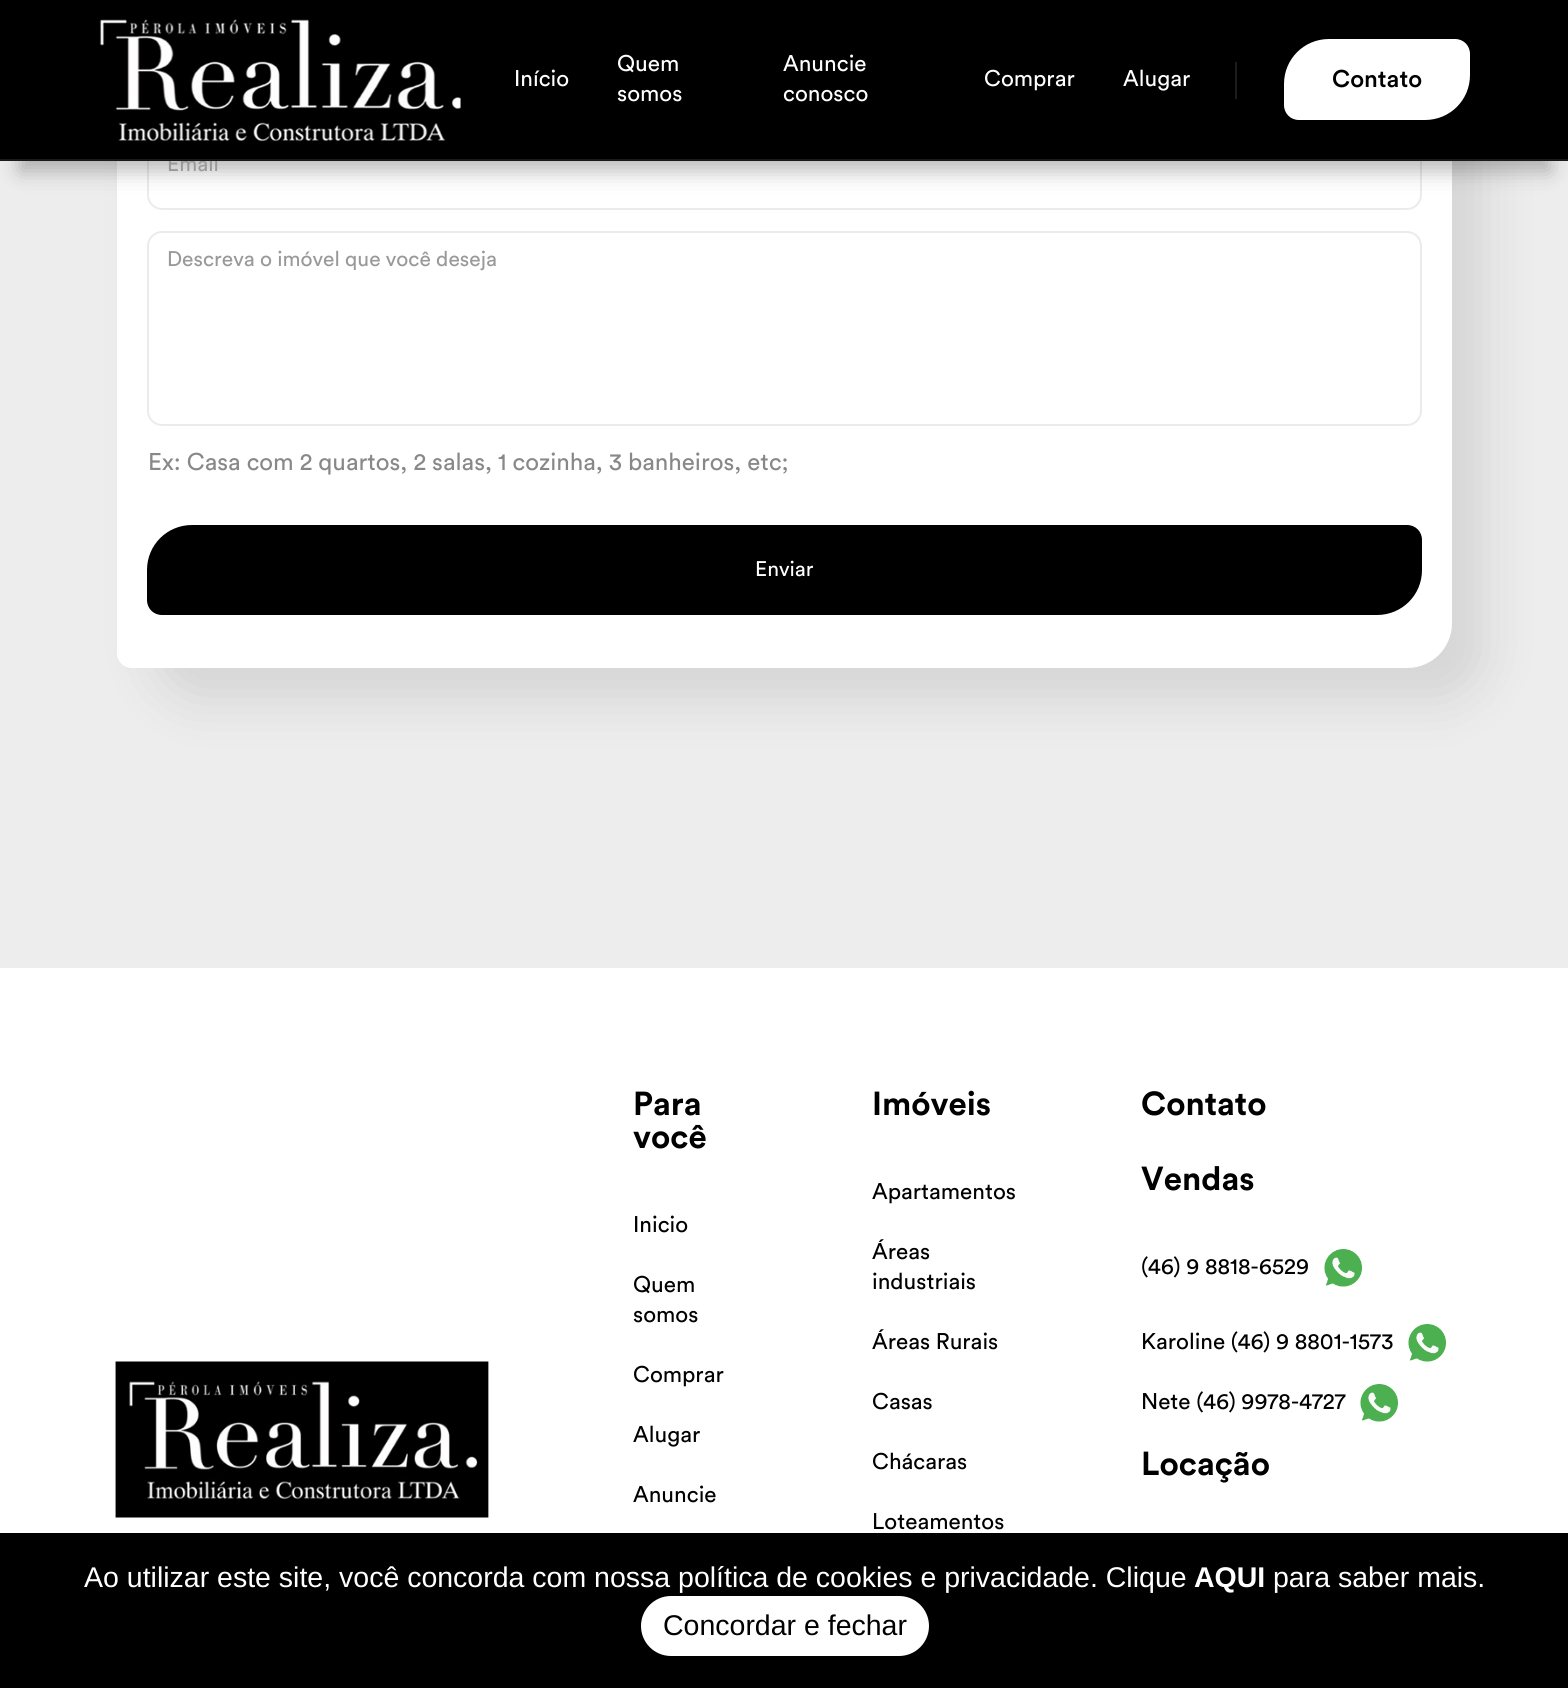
#include <cairo.h>
#include <math.h>
#include <stddef.h>


static void set_color(cairo_t *cr, unsigned color) {
    cairo_set_source_rgb(cr, (color >> 16) / 255.0, (color >> 8 & 255) / 255.0, (color & 255) / 255.0);
}

static void draw_text(cairo_t *cr, double x, double y, const char *s, const char *family, double size, int italic, int bold, unsigned color) {
    cairo_select_font_face(cr, family, italic ? CAIRO_FONT_SLANT_ITALIC : CAIRO_FONT_SLANT_NORMAL,
        bold ? CAIRO_FONT_WEIGHT_BOLD : CAIRO_FONT_WEIGHT_NORMAL);
    cairo_set_font_size(cr, size);
    set_color(cr, color);
    cairo_move_to(cr, x, y);
    cairo_show_text(cr, s);
}

static void fill_rect(cairo_t *cr, double x, double y, double w, double h, unsigned color) {
    set_color(cr, color);
    cairo_rectangle(cr, x, y, w, h);
    cairo_fill(cr);
}

static void rounded_rect(cairo_t *cr, double x, double y, double w, double h, double r) {
    cairo_new_sub_path(cr);
    cairo_arc(cr, x + w - r, y + h - r, r, 0, M_PI / 2);
    cairo_arc(cr, x + r, y + h - r, r, M_PI / 2, M_PI);
    cairo_arc(cr, x + r, y + r, r, M_PI, 1.5 * M_PI);
    cairo_arc(cr, x + w - r, y + r, r, 1.5 * M_PI, 2 * M_PI);
    cairo_close_path(cr);
}

static void draw_shadow(cairo_t *cr, double x, double y, double w, double h, double r, double blur, double alpha) {
    cairo_push_group_with_content(cr, CAIRO_CONTENT_ALPHA);
    cairo_set_operator(cr, CAIRO_OPERATOR_SOURCE);
    for (int i = 15; i >= -15 && fmin(w, h) + blur * i / 3 > 0; i -= 2) {
        double e = blur * i / 6;
        cairo_set_source_rgba(cr, 0, 0, 0, alpha * erfc((i - 1) / 8.5) / 2);
        rounded_rect(cr, x - e, y - e, w + 2 * e, h + 2 * e, fmax(0, fmin(r + e + blur * .6, fmin(w, h) / 2 + e)));
        cairo_fill(cr);
    }
    cairo_pattern_t *soft = cairo_pop_group(cr);
    cairo_mask(cr, soft);
    cairo_pattern_destroy(soft);
}

static void draw_image(cairo_t *cr, const char *path, double x, double y, double w, double h) {
    cairo_surface_t *image = cairo_image_surface_create_from_png(path);
    cairo_save(cr);
    cairo_set_source_surface(cr, image, x, y);
    cairo_rectangle(cr, x, y, w, h);
    cairo_fill(cr);
    cairo_restore(cr);
    cairo_surface_destroy(image);
}

int main(void) {
    cairo_surface_t *surface = cairo_image_surface_create(CAIRO_FORMAT_RGB24, 1568, 1688);
    cairo_t *cr = cairo_create(surface);
    cairo_font_options_t *options = cairo_font_options_create();
    cairo_font_options_set_hint_metrics(options, CAIRO_HINT_METRICS_OFF);
    cairo_font_options_set_hint_style(options, CAIRO_HINT_STYLE_NONE);
    cairo_set_font_options(cr, options);
    cairo_set_miter_limit(cr, 4);
    set_color(cr, 0xEDEDED);
    cairo_paint(cr);
    set_color(cr, 0x000000);
    draw_shadow(cr, 152, -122, 1335, 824, 45, 25.5, 0.1);
    set_color(cr, 0xFFFFFF);
    cairo_new_path(cr);
    cairo_move_to(cr, 162, -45);
    cairo_line_to(cr, 1437, -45);
    cairo_curve_to(cr, 1445.5, -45, 1452, -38.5, 1452, -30);
    cairo_line_to(cr, 1452, 623);
    cairo_curve_to(cr, 1452, 648, 1432, 668, 1407, 668);
    cairo_line_to(cr, 132, 668);
    cairo_curve_to(cr, 123.5, 668, 117, 661.5, 117, 653);
    cairo_line_to(cr, 117, 0);
    cairo_curve_to(cr, 117, -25, 137, -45, 162, -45);
    cairo_close_path(cr);
    cairo_fill(cr);
    rounded_rect(cr, 148, 121, 1273, 88, 14);
    set_color(cr, 0xEBEBEB);
    cairo_stroke(cr);
    set_color(cr, 0x000000);
    draw_shadow(cr, 20, 50, 1530, 121, 0, 10.5, 0.27);
    draw_text(cr, 167, 171, "Email", "Circular", 21, 0, 0, 0x999999);
    fill_rect(cr, 0, 0, 1568, 159, 0x000000);
    fill_rect(cr, 0, 159, 1568, 2, 0x1A1A1A);
    draw_image(cr, "assets/img1.png", 99, 19, 362, 123);
    draw_text(cr, 514, 86, "Início", "Circular", 22.5, 0, 0, 0xFFFFFF);
    draw_text(cr, 617, 71, "Quem", "Circular", 22.5, 0, 0, 0xFFFFFF);
    draw_text(cr, 617, 101, "somos", "Circular", 22.5, 0, 0, 0xFFFFFF);
    draw_text(cr, 783, 71, "Anuncie", "Circular", 22.5, 0, 0, 0xFFFFFF);
    draw_text(cr, 783, 101, "conosco", "Circular", 22.5, 0, 0, 0xFFFFFF);
    draw_text(cr, 984, 86, "Comprar", "Circular", 22.5, 0, 0, 0xFFFFFF);
    draw_text(cr, 1123, 86, "Alugar", "Circular", 22.5, 0, 0, 0xFFFFFF);
    fill_rect(cr, 1235, 62, 2, 37, 0x1D1B1B);
    set_color(cr, 0xFFFFFF);
    cairo_new_path(cr);
    cairo_move_to(cr, 1329, 39);
    cairo_line_to(cr, 1455, 39);
    cairo_curve_to(cr, 1463.5, 39, 1470, 45.5, 1470, 54);
    cairo_line_to(cr, 1470, 75);
    cairo_curve_to(cr, 1470, 100, 1450, 120, 1425, 120);
    cairo_line_to(cr, 1299, 120);
    cairo_curve_to(cr, 1290.5, 120, 1284, 113.5, 1284, 105);
    cairo_line_to(cr, 1284, 84);
    cairo_curve_to(cr, 1284, 59, 1304, 39, 1329, 39);
    cairo_close_path(cr);
    cairo_fill(cr);
    draw_text(cr, 1332, 87, "Contato", "Circular Medium", 24, 0, 0, 0x000000);
    rounded_rect(cr, 148, 232, 1273, 193, 14);
    set_color(cr, 0xEBEBEB);
    cairo_stroke(cr);
    draw_text(cr, 167, 266, "Descreva o imóvel que você deseja", "Circular", 21, 0, 0, 0x999999);
    draw_text(cr, 148, 470, "Ex: Casa com 2 quartos, 2 salas, 1 cozinha, 3 banheiros, etc;", "Circular", 24, 0, 0, 0x888888);
    set_color(cr, 0x000000);
    cairo_new_path(cr);
    cairo_move_to(cr, 192, 525);
    cairo_line_to(cr, 1407, 525);
    cairo_curve_to(cr, 1415.5, 525, 1422, 531.5, 1422, 540);
    cairo_line_to(cr, 1422, 570);
    cairo_curve_to(cr, 1422, 595, 1402, 615, 1377, 615);
    cairo_line_to(cr, 162, 615);
    cairo_curve_to(cr, 153.5, 615, 147, 608.5, 147, 600);
    cairo_line_to(cr, 147, 570);
    cairo_curve_to(cr, 147, 545, 167, 525, 192, 525);
    cairo_close_path(cr);
    cairo_fill(cr);
    draw_text(cr, 755, 576, "Enviar", "Circular", 21, 0, 0, 0xFFFFFF);
    fill_rect(cr, 0, 968, 1568, 565, 0xFFFFFF);
    draw_image(cr, "assets/img2.png", 115, 1361, 374, 157);
    draw_text(cr, 633, 1115, "Para", "Circular", 33, 0, 1, 0x000000);
    draw_text(cr, 633, 1148, "você", "Circular", 33, 0, 1, 0x000000);
    draw_text(cr, 633, 1232, "Inicio", "Circular", 22.5, 0, 0, 0x000000);
    draw_text(cr, 633, 1292, "Quem", "Circular", 22.5, 0, 0, 0x000000);
    draw_text(cr, 633, 1322, "somos", "Circular", 22.5, 0, 0, 0x000000);
    draw_text(cr, 633, 1382, "Comprar", "Circular", 22.5, 0, 0, 0x000000);
    draw_text(cr, 633, 1442, "Alugar", "Circular", 22.5, 0, 0, 0x000000);
    draw_text(cr, 633, 1502, "Anuncie", "Circular", 22.5, 0, 0, 0x000000);
    draw_text(cr, 872, 1115, "Imóveis", "Circular", 33, 0, 1, 0x000000);
    draw_text(cr, 872, 1199, "Apartamentos", "Circular", 22.5, 0, 0, 0x000000);
    draw_text(cr, 872, 1259, "Áreas", "Circular", 22.5, 0, 0, 0x000000);
    draw_text(cr, 872, 1289, "industriais", "Circular", 22.5, 0, 0, 0x000000);
    draw_text(cr, 872, 1349, "Áreas Rurais", "Circular", 22.5, 0, 0, 0x000000);
    draw_text(cr, 872, 1409, "Casas", "Circular", 22.5, 0, 0, 0x000000);
    draw_text(cr, 872, 1469, "Chácaras", "Circular", 22.5, 0, 0, 0x000000);
    draw_text(cr, 872, 1529, "Loteamentos", "Circular", 22.5, 0, 0, 0x000000);
    draw_text(cr, 1141, 1115, "Contato", "Circular", 33, 0, 1, 0x000000);
    draw_text(cr, 1141, 1190, "Vendas", "Circular", 33, 0, 1, 0x000000);
    draw_image(cr, "assets/img3.png", 1324, 1249, 38, 38);
    draw_text(cr, 1141, 1274, "(46) 9 8818-6529", "Circular", 22.5, 0, 0, 0x000000);
    draw_image(cr, "assets/img3.png", 1408, 1324, 38, 38);
    draw_text(cr, 1141, 1349, "Karoline (46) 9 8801-1573", "Circular", 22.5, 0, 0, 0x000000);
    draw_image(cr, "assets/img3.png", 1360, 1384, 38, 38);
    draw_text(cr, 1141, 1409, "Nete (46) 9978-4727", "Circular", 22.5, 0, 0, 0x000000);
    draw_text(cr, 1141, 1475, "Locação", "Circular", 33, 0, 1, 0x000000);
    fill_rect(cr, 0, 1533, 1568, 155, 0x000000);
    draw_text(cr, 84, 1587, "Ao utilizar este site, você concorda com nossa política de cookies e privacidade. Clique", "Liberation Sans", 28.5, 0, 0, 0xFFFFFF);
    draw_text(cr, 1194, 1587, "AQUI", "Liberation Sans", 28.5, 0, 1, 0xFFFFFF);
    draw_text(cr, 1273, 1587, "para saber mais.", "Liberation Sans", 28.5, 0, 0, 0xFFFFFF);
    rounded_rect(cr, 641, 1596, 288, 60, 30);
    cairo_fill(cr);
    draw_text(cr, 663, 1635, "Concordar e fechar", "Liberation Sans", 28.5, 0, 0, 0x000000);
    cairo_surface_write_to_png(surface, "output.png");
    cairo_font_options_destroy(options);
    cairo_destroy(cr);
    cairo_surface_destroy(surface);
    return 0;
}
